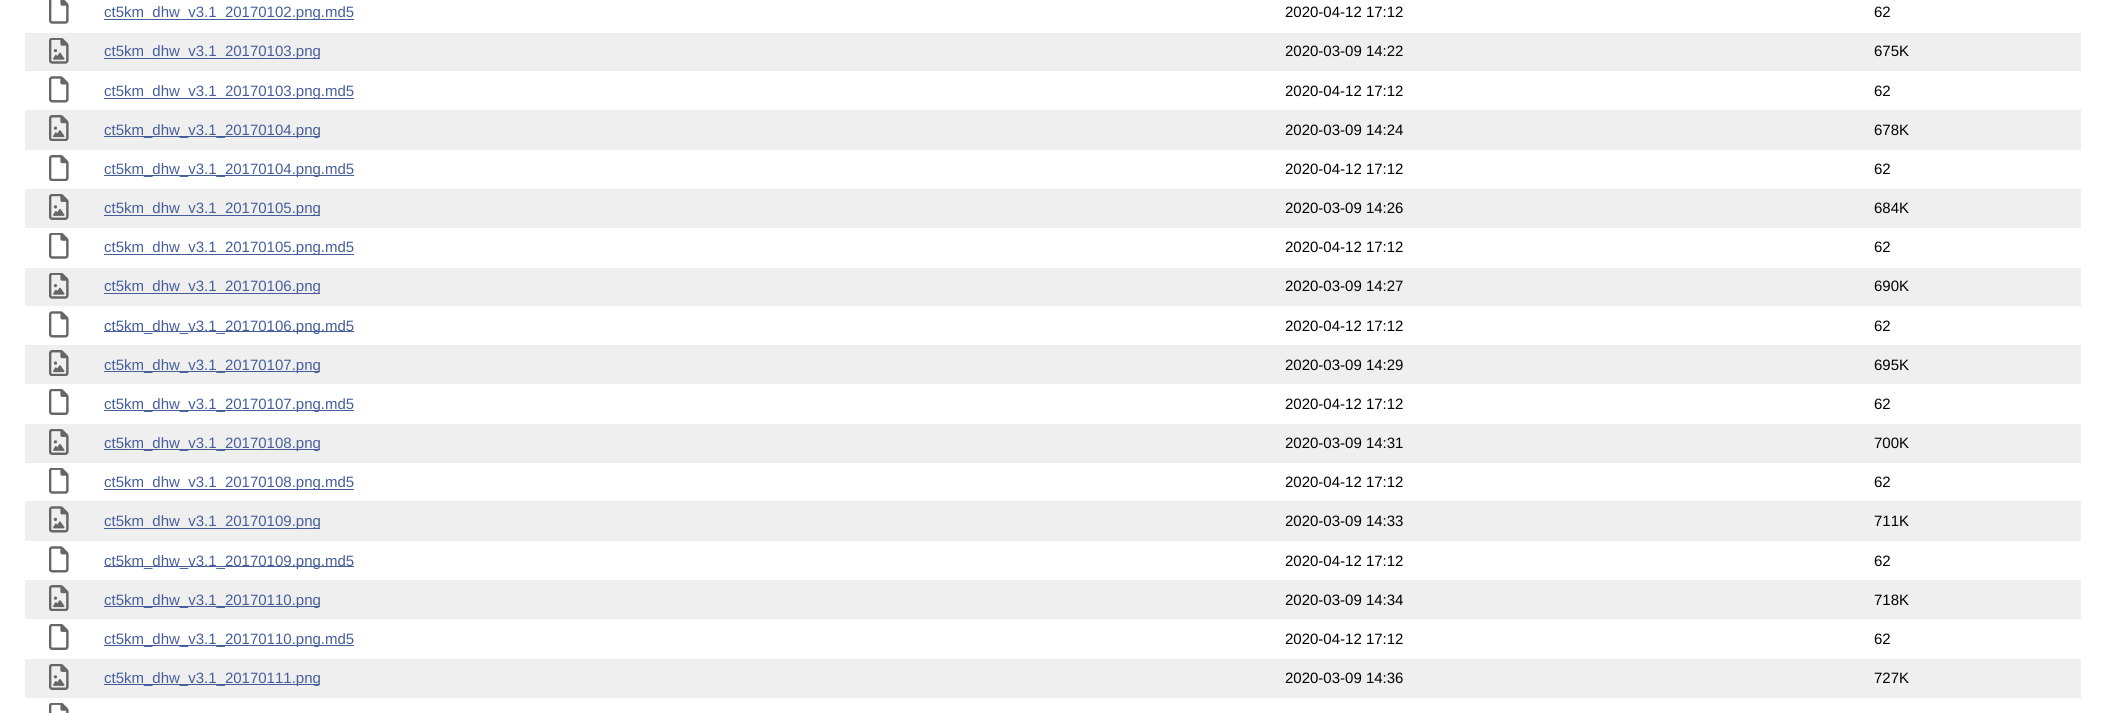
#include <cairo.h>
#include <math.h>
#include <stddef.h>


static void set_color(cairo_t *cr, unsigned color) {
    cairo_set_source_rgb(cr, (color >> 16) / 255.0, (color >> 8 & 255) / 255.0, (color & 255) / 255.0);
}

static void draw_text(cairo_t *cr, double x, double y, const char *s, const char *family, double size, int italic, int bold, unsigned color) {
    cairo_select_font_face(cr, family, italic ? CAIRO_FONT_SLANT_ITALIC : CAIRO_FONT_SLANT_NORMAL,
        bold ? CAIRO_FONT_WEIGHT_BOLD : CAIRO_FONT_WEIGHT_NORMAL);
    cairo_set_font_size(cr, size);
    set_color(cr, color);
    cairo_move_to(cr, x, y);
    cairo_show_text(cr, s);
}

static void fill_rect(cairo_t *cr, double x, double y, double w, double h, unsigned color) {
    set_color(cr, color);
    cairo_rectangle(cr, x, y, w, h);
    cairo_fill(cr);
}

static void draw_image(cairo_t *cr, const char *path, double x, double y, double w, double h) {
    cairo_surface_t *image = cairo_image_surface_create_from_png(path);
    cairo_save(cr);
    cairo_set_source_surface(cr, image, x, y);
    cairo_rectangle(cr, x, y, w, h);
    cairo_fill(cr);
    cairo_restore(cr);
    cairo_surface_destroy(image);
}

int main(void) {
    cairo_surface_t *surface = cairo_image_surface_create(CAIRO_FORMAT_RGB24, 2106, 713);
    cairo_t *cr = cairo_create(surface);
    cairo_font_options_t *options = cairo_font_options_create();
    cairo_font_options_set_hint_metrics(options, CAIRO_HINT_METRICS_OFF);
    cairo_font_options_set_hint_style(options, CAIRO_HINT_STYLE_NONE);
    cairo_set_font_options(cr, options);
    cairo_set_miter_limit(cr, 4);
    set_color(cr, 0xFFFFFF);
    cairo_paint(cr);
    draw_image(cr, "assets/img1.png", 49, 0, 20, 24);
    fill_rect(cr, 104, 19, 250, 1, 0x455E9B);
    draw_text(cr, 104, 17, "ct5km_dhw_v3.1_20170102.png.md5", "Liberation Sans", 15, 0, 0, 0x455E9B);
    draw_text(cr, 1285, 17, "2020-04-12 17:12", "Liberation Sans", 15, 0, 0, 0x000000);
    draw_text(cr, 1874, 17, "62", "Liberation Sans", 15, 0, 0, 0x000000);
    fill_rect(cr, 25, 33, 2056, 38, 0xEFEFEF);
    draw_image(cr, "assets/img2.png", 49, 38, 20, 26);
    fill_rect(cr, 104, 58, 216, 1, 0x455E9B);
    draw_text(cr, 104, 56, "ct5km_dhw_v3.1_20170103.png", "Liberation Sans", 15, 0, 0, 0x455E9B);
    draw_text(cr, 1285, 56, "2020-03-09 14:22", "Liberation Sans", 15, 0, 0, 0x000000);
    draw_text(cr, 1874, 56, "675K", "Liberation Sans", 15, 0, 0, 0x000000);
    draw_image(cr, "assets/img3.png", 49, 76, 20, 27);
    fill_rect(cr, 104, 98, 250, 1, 0x455E9B);
    draw_text(cr, 104, 96, "ct5km_dhw_v3.1_20170103.png.md5", "Liberation Sans", 15, 0, 0, 0x455E9B);
    draw_text(cr, 1285, 96, "2020-04-12 17:12", "Liberation Sans", 15, 0, 0, 0x000000);
    draw_text(cr, 1874, 96, "62", "Liberation Sans", 15, 0, 0, 0x000000);
    fill_rect(cr, 25, 110, 2056, 40, 0xEFEFEF);
    draw_image(cr, "assets/img4.png", 49, 115, 20, 26);
    fill_rect(cr, 104, 136, 216, 1, 0x455E9B);
    draw_text(cr, 104, 135, "ct5km_dhw_v3.1_20170104.png", "Liberation Sans", 15, 0, 0, 0x455E9B);
    draw_text(cr, 1285, 135, "2020-03-09 14:24", "Liberation Sans", 15, 0, 0, 0x000000);
    draw_text(cr, 1874, 135, "678K", "Liberation Sans", 15, 0, 0, 0x000000);
    draw_image(cr, "assets/img5.png", 49, 155, 20, 26);
    fill_rect(cr, 104, 175, 250, 1, 0x455E9B);
    draw_text(cr, 104, 174, "ct5km_dhw_v3.1_20170104.png.md5", "Liberation Sans", 15, 0, 0, 0x455E9B);
    draw_text(cr, 1285, 174, "2020-04-12 17:12", "Liberation Sans", 15, 0, 0, 0x000000);
    draw_text(cr, 1874, 174, "62", "Liberation Sans", 15, 0, 0, 0x000000);
    fill_rect(cr, 25, 189, 2056, 39, 0xEFEFEF);
    draw_image(cr, "assets/img6.png", 49, 194, 20, 26);
    fill_rect(cr, 104, 215, 216, 1, 0x455E9B);
    draw_text(cr, 104, 213, "ct5km_dhw_v3.1_20170105.png", "Liberation Sans", 15, 0, 0, 0x455E9B);
    draw_text(cr, 1285, 213, "2020-03-09 14:26", "Liberation Sans", 15, 0, 0, 0x000000);
    draw_text(cr, 1874, 213, "684K", "Liberation Sans", 15, 0, 0, 0x000000);
    draw_image(cr, "assets/img7.png", 49, 233, 20, 26);
    fill_rect(cr, 104, 254, 250, 1, 0x455E9B);
    draw_text(cr, 104, 252, "ct5km_dhw_v3.1_20170105.png.md5", "Liberation Sans", 15, 0, 0, 0x455E9B);
    draw_text(cr, 1285, 252, "2020-04-12 17:12", "Liberation Sans", 15, 0, 0, 0x000000);
    draw_text(cr, 1874, 252, "62", "Liberation Sans", 15, 0, 0, 0x000000);
    fill_rect(cr, 25, 268, 2056, 38, 0xEFEFEF);
    draw_image(cr, "assets/img2.png", 49, 273, 20, 26);
    fill_rect(cr, 104, 293, 216, 1, 0x455E9B);
    draw_text(cr, 104, 291, "ct5km_dhw_v3.1_20170106.png", "Liberation Sans", 15, 0, 0, 0x455E9B);
    draw_text(cr, 1285, 291, "2020-03-09 14:27", "Liberation Sans", 15, 0, 0, 0x000000);
    draw_text(cr, 1874, 291, "690K", "Liberation Sans", 15, 0, 0, 0x000000);
    draw_image(cr, "assets/img3.png", 49, 311, 20, 27);
    fill_rect(cr, 104, 331, 250, 1, 0x455E9B);
    draw_text(cr, 104, 331, "ct5km_dhw_v3.1_20170106.png.md5", "Liberation Sans", 15, 0, 0, 0x455E9B);
    draw_text(cr, 1285, 331, "2020-04-12 17:12", "Liberation Sans", 15, 0, 0, 0x000000);
    draw_text(cr, 1874, 331, "62", "Liberation Sans", 15, 0, 0, 0x000000);
    fill_rect(cr, 25, 345, 2056, 39, 0xEFEFEF);
    draw_image(cr, "assets/img4.png", 49, 350, 20, 26);
    fill_rect(cr, 104, 371, 216, 1, 0x455E9B);
    draw_text(cr, 104, 370, "ct5km_dhw_v3.1_20170107.png", "Liberation Sans", 15, 0, 0, 0x455E9B);
    draw_text(cr, 1285, 370, "2020-03-09 14:29", "Liberation Sans", 15, 0, 0, 0x000000);
    draw_text(cr, 1874, 370, "695K", "Liberation Sans", 15, 0, 0, 0x000000);
    draw_image(cr, "assets/img8.png", 49, 389, 20, 26);
    fill_rect(cr, 104, 410, 250, 1, 0x455E9B);
    draw_text(cr, 104, 409, "ct5km_dhw_v3.1_20170107.png.md5", "Liberation Sans", 15, 0, 0, 0x455E9B);
    draw_text(cr, 1285, 409, "2020-04-12 17:12", "Liberation Sans", 15, 0, 0, 0x000000);
    draw_text(cr, 1874, 409, "62", "Liberation Sans", 15, 0, 0, 0x000000);
    fill_rect(cr, 25, 424, 2056, 39, 0xEFEFEF);
    draw_image(cr, "assets/img6.png", 49, 429, 20, 26);
    fill_rect(cr, 104, 449, 216, 1, 0x455E9B);
    draw_text(cr, 104, 448, "ct5km_dhw_v3.1_20170108.png", "Liberation Sans", 15, 0, 0, 0x455E9B);
    draw_text(cr, 1285, 448, "2020-03-09 14:31", "Liberation Sans", 15, 0, 0, 0x000000);
    draw_text(cr, 1874, 448, "700K", "Liberation Sans", 15, 0, 0, 0x000000);
    draw_image(cr, "assets/img7.png", 49, 468, 20, 26);
    fill_rect(cr, 104, 489, 250, 1, 0x455E9B);
    draw_text(cr, 104, 487, "ct5km_dhw_v3.1_20170108.png.md5", "Liberation Sans", 15, 0, 0, 0x455E9B);
    draw_text(cr, 1285, 487, "2020-04-12 17:12", "Liberation Sans", 15, 0, 0, 0x000000);
    draw_text(cr, 1874, 487, "62", "Liberation Sans", 15, 0, 0, 0x000000);
    fill_rect(cr, 25, 501, 2056, 40, 0xEFEFEF);
    draw_image(cr, "assets/img9.png", 49, 506, 20, 27);
    fill_rect(cr, 104, 528, 216, 1, 0x455E9B);
    draw_text(cr, 104, 526, "ct5km_dhw_v3.1_20170109.png", "Liberation Sans", 15, 0, 0, 0x455E9B);
    draw_text(cr, 1285, 526, "2020-03-09 14:33", "Liberation Sans", 15, 0, 0, 0x000000);
    draw_text(cr, 1874, 526, "711K", "Liberation Sans", 15, 0, 0, 0x000000);
    draw_image(cr, "assets/img3.png", 49, 546, 20, 27);
    fill_rect(cr, 104, 566, 250, 1, 0x455E9B);
    draw_text(cr, 104, 566, "ct5km_dhw_v3.1_20170109.png.md5", "Liberation Sans", 15, 0, 0, 0x455E9B);
    draw_text(cr, 1285, 566, "2020-04-12 17:12", "Liberation Sans", 15, 0, 0, 0x000000);
    draw_text(cr, 1874, 566, "62", "Liberation Sans", 15, 0, 0, 0x000000);
    fill_rect(cr, 25, 580, 2056, 39, 0xEFEFEF);
    draw_image(cr, "assets/img4.png", 49, 585, 20, 26);
    fill_rect(cr, 104, 606, 216, 1, 0x455E9B);
    draw_text(cr, 104, 605, "ct5km_dhw_v3.1_20170110.png", "Liberation Sans", 15, 0, 0, 0x455E9B);
    draw_text(cr, 1285, 605, "2020-03-09 14:34", "Liberation Sans", 15, 0, 0, 0x000000);
    draw_text(cr, 1874, 605, "718K", "Liberation Sans", 15, 0, 0, 0x000000);
    draw_image(cr, "assets/img8.png", 49, 624, 20, 26);
    fill_rect(cr, 104, 645, 250, 1, 0x455E9B);
    draw_text(cr, 104, 644, "ct5km_dhw_v3.1_20170110.png.md5", "Liberation Sans", 15, 0, 0, 0x455E9B);
    draw_text(cr, 1285, 644, "2020-04-12 17:12", "Liberation Sans", 15, 0, 0, 0x000000);
    draw_text(cr, 1874, 644, "62", "Liberation Sans", 15, 0, 0, 0x000000);
    fill_rect(cr, 25, 659, 2056, 39, 0xEFEFEF);
    draw_image(cr, "assets/img6.png", 49, 664, 20, 26);
    fill_rect(cr, 104, 684, 216, 1, 0x455E9B);
    draw_text(cr, 104, 683, "ct5km_dhw_v3.1_20170111.png", "Liberation Sans", 15, 0, 0, 0x455E9B);
    draw_text(cr, 1285, 683, "2020-03-09 14:36", "Liberation Sans", 15, 0, 0, 0x000000);
    draw_text(cr, 1874, 683, "727K", "Liberation Sans", 15, 0, 0, 0x000000);
    draw_image(cr, "assets/img10.png", 49, 703, 20, 10);
    cairo_surface_write_to_png(surface, "output.png");
    cairo_font_options_destroy(options);
    cairo_destroy(cr);
    cairo_surface_destroy(surface);
    return 0;
}
